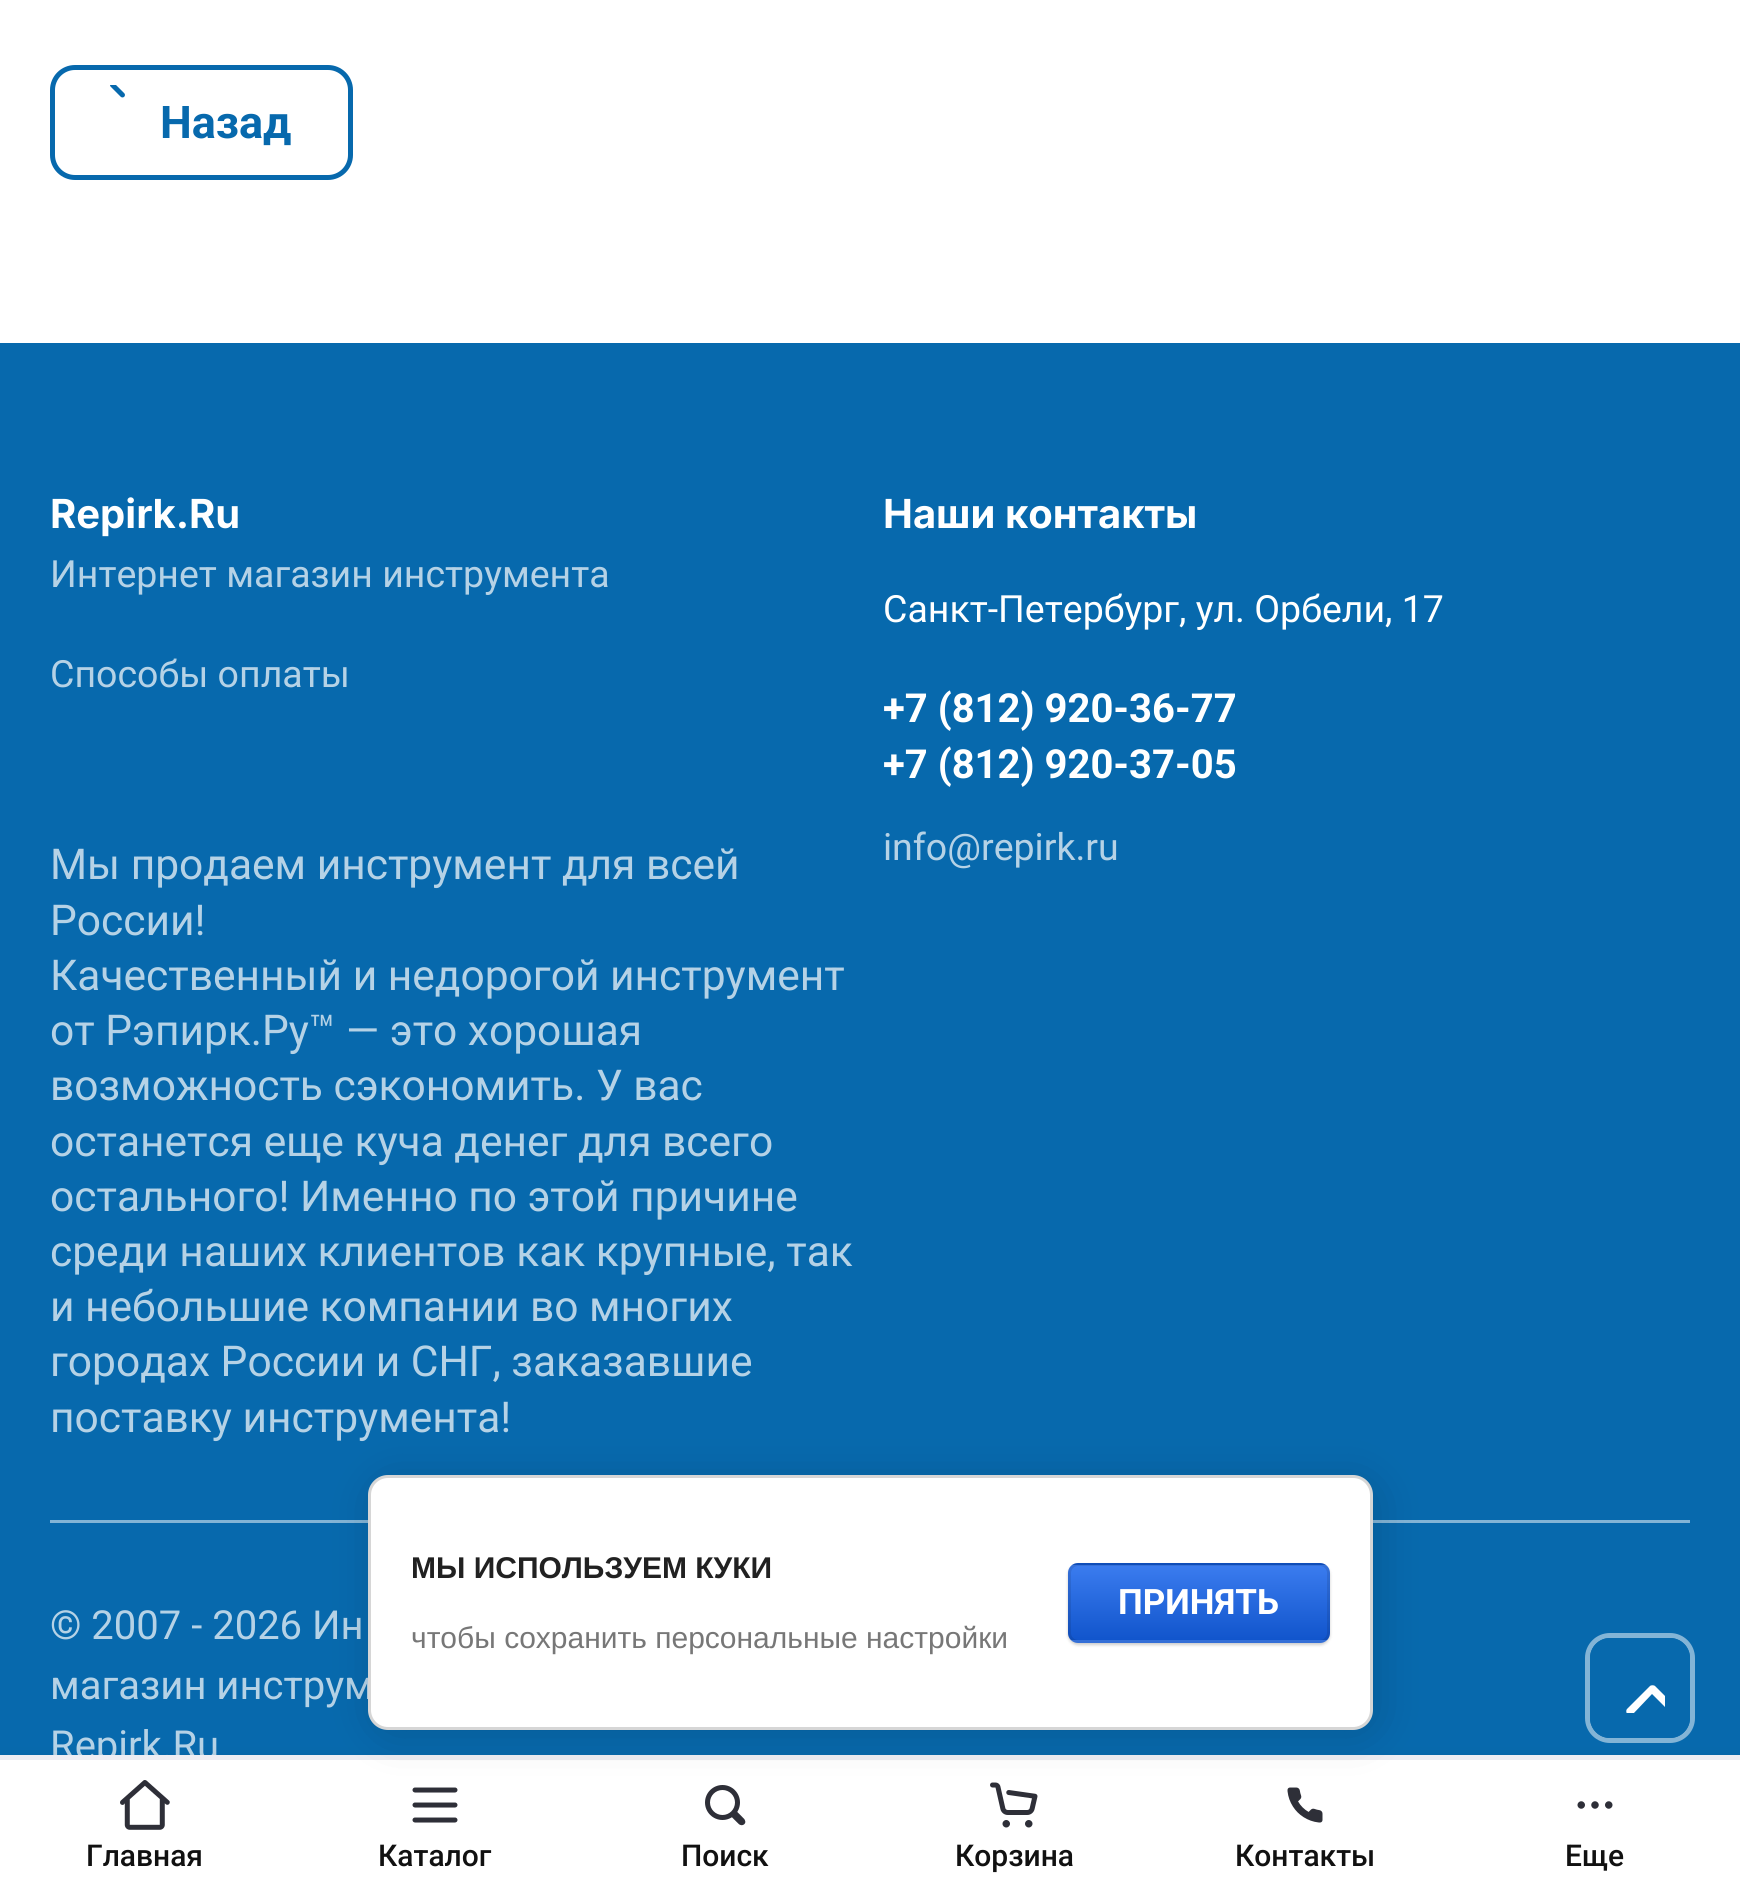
#include <cairo.h>
#include <math.h>
#include <stddef.h>


static void set_color(cairo_t *cr, unsigned color) {
    cairo_set_source_rgb(cr, (color >> 16) / 255.0, (color >> 8 & 255) / 255.0, (color & 255) / 255.0);
}

static void draw_text(cairo_t *cr, double x, double y, const char *s, const char *family, double size, int italic, int bold, unsigned color) {
    cairo_select_font_face(cr, family, italic ? CAIRO_FONT_SLANT_ITALIC : CAIRO_FONT_SLANT_NORMAL,
        bold ? CAIRO_FONT_WEIGHT_BOLD : CAIRO_FONT_WEIGHT_NORMAL);
    cairo_set_font_size(cr, size);
    set_color(cr, color);
    cairo_move_to(cr, x, y);
    cairo_show_text(cr, s);
}

static void fill_rect(cairo_t *cr, double x, double y, double w, double h, unsigned color) {
    set_color(cr, color);
    cairo_rectangle(cr, x, y, w, h);
    cairo_fill(cr);
}

static void rounded_rect(cairo_t *cr, double x, double y, double w, double h, double r) {
    cairo_new_sub_path(cr);
    cairo_arc(cr, x + w - r, y + h - r, r, 0, M_PI / 2);
    cairo_arc(cr, x + r, y + h - r, r, M_PI / 2, M_PI);
    cairo_arc(cr, x + r, y + r, r, M_PI, 1.5 * M_PI);
    cairo_arc(cr, x + w - r, y + r, r, 1.5 * M_PI, 2 * M_PI);
    cairo_close_path(cr);
}

static void draw_shadow(cairo_t *cr, double x, double y, double w, double h, double r, double blur, double alpha) {
    cairo_push_group_with_content(cr, CAIRO_CONTENT_ALPHA);
    cairo_set_operator(cr, CAIRO_OPERATOR_SOURCE);
    for (int i = 15; i >= -15 && fmin(w, h) + blur * i / 3 > 0; i -= 2) {
        double e = blur * i / 6;
        cairo_set_source_rgba(cr, 0, 0, 0, alpha * erfc((i - 1) / 8.5) / 2);
        rounded_rect(cr, x - e, y - e, w + 2 * e, h + 2 * e, fmax(0, fmin(r + e + blur * .6, fmin(w, h) / 2 + e)));
        cairo_fill(cr);
    }
    cairo_pattern_t *soft = cairo_pop_group(cr);
    cairo_mask(cr, soft);
    cairo_pattern_destroy(soft);
}

static void draw_image(cairo_t *cr, const char *path, double x, double y, double w, double h) {
    cairo_surface_t *image = cairo_image_surface_create_from_png(path);
    cairo_save(cr);
    cairo_set_source_surface(cr, image, x, y);
    cairo_rectangle(cr, x, y, w, h);
    cairo_fill(cr);
    cairo_restore(cr);
    cairo_surface_destroy(image);
}

int main(void) {
    cairo_surface_t *surface = cairo_image_surface_create(CAIRO_FORMAT_RGB24, 1740, 1890);
    cairo_t *cr = cairo_create(surface);
    cairo_font_options_t *options = cairo_font_options_create();
    cairo_font_options_set_hint_metrics(options, CAIRO_HINT_METRICS_OFF);
    cairo_font_options_set_hint_style(options, CAIRO_HINT_STYLE_NONE);
    cairo_set_font_options(cr, options);
    cairo_set_miter_limit(cr, 4);
    cairo_pattern_t *gradient;
    set_color(cr, 0xFFFFFF);
    cairo_paint(cr);
    rounded_rect(cr, 52.5, 67.5, 298, 110, 22.5);
    set_color(cr, 0x0769AD);
    cairo_set_line_width(cr, 5);
    cairo_stroke(cr);
    draw_image(cr, "assets/img1.png", 110, 85, 15, 13);
    draw_text(cr, 160, 138, "Назад", "Roboto", 45, 0, 1, 0x0769AD);
    fill_rect(cr, 0, 343, 1740, 1412, 0x0769AD);
    draw_text(cr, 50, 528, "Repirk.Ru", "Inter", 40, 0, 1, 0xFFFFFF);
    draw_text(cr, 50, 587, "Интернет магазин инструмента", "Roboto", 37.5, 0, 0, 0xB5D2E6);
    draw_text(cr, 50, 687, "Способы оплаты", "Roboto", 37.5, 0, 0, 0xB5D2E6);
    draw_text(cr, 50, 879, "Мы продаем инструмент для всей", "Roboto", 42.5, 0, 0, 0xB5D2E6);
    draw_text(cr, 50, 935, "России!", "Roboto", 42.5, 0, 0, 0xB5D2E6);
    draw_text(cr, 50, 990, "Качественный и недорогой инструмент", "Roboto", 42.5, 0, 0, 0xB5D2E6);
    draw_text(cr, 50, 1045, "от Рэпирк.Ру™ — это хорошая", "Roboto", 42.5, 0, 0, 0xB5D2E6);
    draw_text(cr, 50, 1100, "возможность сэкономить. У вас", "Roboto", 42.5, 0, 0, 0xB5D2E6);
    draw_text(cr, 50, 1156, "останется еще куча денег для всего", "Roboto", 42.5, 0, 0, 0xB5D2E6);
    draw_text(cr, 50, 1211, "остального! Именно по этой причине", "Roboto", 42.5, 0, 0, 0xB5D2E6);
    draw_text(cr, 50, 1266, "среди наших клиентов как крупные, так", "Roboto", 42.5, 0, 0, 0xB5D2E6);
    draw_text(cr, 50, 1321, "и небольшие компании во многих", "Roboto", 42.5, 0, 0, 0xB5D2E6);
    draw_text(cr, 50, 1376, "городах России и СНГ, заказавшие", "Roboto", 42.5, 0, 0, 0xB5D2E6);
    draw_text(cr, 50, 1432, "поставку инструмента!", "Roboto", 42.5, 0, 0, 0xB5D2E6);
    draw_text(cr, 883, 528, "Наши контакты", "Inter", 40, 0, 1, 0xFFFFFF);
    draw_text(cr, 883, 622, "Санкт-Петербург, ул. Орбели, 17", "Roboto", 37.5, 0, 0, 0xFFFFFF);
    draw_text(cr, 883, 722, "+7 (812) 920-36-77", "Roboto", 40, 0, 1, 0xFFFFFF);
    draw_text(cr, 883, 778, "+7 (812) 920-37-05", "Roboto", 40, 0, 1, 0xFFFFFF);
    draw_text(cr, 883, 860, "info@repirk.ru", "Roboto", 37.5, 0, 0, 0xB5D2E6);
    fill_rect(cr, 50, 1520, 1640, 3, 0x83B4D6);
    draw_text(cr, 50, 1639, "© 2007 - 2026 Ин", "Roboto", 40, 0, 0, 0xB5D2E6);
    draw_text(cr, 50, 1699, "магазин инструм", "Roboto", 40, 0, 0, 0xB5D2E6);
    draw_text(cr, 50, 1759, "Repirk.Ru", "Roboto", 40, 0, 0, 0xB5D2E6);
    rounded_rect(cr, 1587.5, 1635.5, 105, 105, 22.5);
    set_color(cr, 0x83B4D6);
    cairo_stroke(cr);
    set_color(cr, 0x0769AD);
    rounded_rect(cr, 1590, 1638, 100, 100, 20);
    cairo_fill(cr);
    cairo_save(cr);
    cairo_rectangle(cr, 1615, 1663, 50, 50);
    cairo_clip(cr);
    set_color(cr, 0xFFFFFF);
    cairo_set_fill_rule(cr, CAIRO_FILL_RULE_EVEN_ODD);
    cairo_new_path(cr);
    cairo_move_to(cr, 1672, 1714);
    cairo_line_to(cr, 1652, 1694);
    cairo_line_to(cr, 1633, 1714);
    cairo_curve_to(cr, 1631, 1715, 1629, 1715, 1627, 1714);
    cairo_curve_to(cr, 1626, 1712, 1626, 1710, 1627, 1709);
    cairo_line_to(cr, 1650, 1686);
    cairo_curve_to(cr, 1651, 1685, 1654, 1685, 1655, 1686);
    cairo_line_to(cr, 1678, 1709);
    cairo_curve_to(cr, 1679, 1710, 1679, 1712, 1678, 1714);
    cairo_curve_to(cr, 1676, 1715, 1674, 1715, 1672, 1714);
    cairo_close_path(cr);
    cairo_fill(cr);
    cairo_restore(cr);
    set_color(cr, 0x000000);
    draw_shadow(cr, 0, 1765, 1740, 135, 0, 10, 0.15);
    fill_rect(cr, 0, 1760, 1740, 130, 0xFFFFFF);
    fill_rect(cr, 0, 1755, 1740, 5, 0xEDEDF3);
    draw_image(cr, "assets/img3.png", 412, 1787, 46, 36);
    draw_image(cr, "assets/img4.png", 705, 1785, 41, 41);
    draw_image(cr, "assets/img5.png", 990, 1782, 48, 46);
    draw_image(cr, "assets/img6.png", 1287, 1787, 36, 36);
    set_color(cr, 0x000000);
    draw_shadow(cr, 373, 1480, 1005, 255, 20, 22.5, 0.14);
    set_color(cr, 0xFFFFFF);
    rounded_rect(cr, 369.5, 1476.5, 1002, 252, 18.5);
    cairo_fill_preserve(cr);
    set_color(cr, 0xD6D6D6);
    cairo_set_line_width(cr, 3);
    cairo_stroke(cr);
    draw_text(cr, 411, 1578, "МЫ ИСПОЛЬЗУЕМ КУКИ", "Liberation Sans", 30, 0, 1, 0x212121);
    draw_text(cr, 411, 1648, "чтобы сохранить персональные настройки", "Liberation Sans", 30, 0, 0, 0x777777);
    set_color(cr, 0x000000);
    draw_shadow(cr, 1068, 1565, 262, 80, 10, 1.5, 0.2);
    cairo_save(cr);
    rounded_rect(cr, 1068, 1563, 262, 80, 10);
    cairo_clip(cr);
    gradient = cairo_pattern_create_linear(1199, 1490, 1199, 1565);
    cairo_pattern_add_color_stop_rgba(gradient, 0, 0.231, 0.486, 0.937, 1);
    cairo_pattern_add_color_stop_rgba(gradient, 1, 0.067, 0.333, 0.8, 1);
    cairo_set_source(cr, gradient);
    cairo_pattern_destroy(gradient);
    cairo_rectangle(cr, 1068, 1563, 262, 2);
    cairo_fill(cr);
    gradient = cairo_pattern_create_linear(1199, 1565, 1199, 1640);
    cairo_pattern_add_color_stop_rgba(gradient, 0, 0.231, 0.486, 0.937, 1);
    cairo_pattern_add_color_stop_rgba(gradient, 1, 0.067, 0.333, 0.8, 1);
    cairo_set_source(cr, gradient);
    cairo_pattern_destroy(gradient);
    cairo_rectangle(cr, 1068, 1565, 262, 75);
    cairo_fill(cr);
    gradient = cairo_pattern_create_linear(1199, 1640, 1199, 1715);
    cairo_pattern_add_color_stop_rgba(gradient, 0, 0.231, 0.486, 0.937, 1);
    cairo_pattern_add_color_stop_rgba(gradient, 1, 0.067, 0.333, 0.8, 1);
    cairo_set_source(cr, gradient);
    cairo_pattern_destroy(gradient);
    cairo_rectangle(cr, 1068, 1640, 262, 3);
    cairo_fill(cr);
    cairo_restore(cr);
    rounded_rect(cr, 1069.5, 1564.5, 259, 77, 8.5);
    cairo_set_source_rgba(cr, 0, 0, 0, 0.1);
    cairo_stroke(cr);
    draw_text(cr, 1118, 1614, "ПРИНЯТЬ", "Roboto", 35, 0, 1, 0xFFFFFF);
    draw_image(cr, "assets/img2.png", 120, 1780, 50, 50);
    draw_text(cr, 86, 1866, "Главная", "Roboto Medium", 30, 0, 0, 0x111111);
    draw_text(cr, 378, 1866, "Каталог", "Roboto Medium", 30, 0, 0, 0x111111);
    draw_text(cr, 681, 1866, "Поиск", "Roboto Medium", 30, 0, 0, 0x111111);
    draw_text(cr, 955, 1866, "Корзина", "Roboto Medium", 30, 0, 0, 0x111111);
    draw_text(cr, 1235, 1866, "Контакты", "Roboto Medium", 30, 0, 0, 0x111111);
    draw_image(cr, "assets/img7.png", 1577, 1801, 36, 8);
    draw_text(cr, 1565, 1866, "Еще", "Roboto Medium", 30, 0, 0, 0x111111);
    cairo_surface_write_to_png(surface, "output.png");
    cairo_font_options_destroy(options);
    cairo_destroy(cr);
    cairo_surface_destroy(surface);
    return 0;
}
